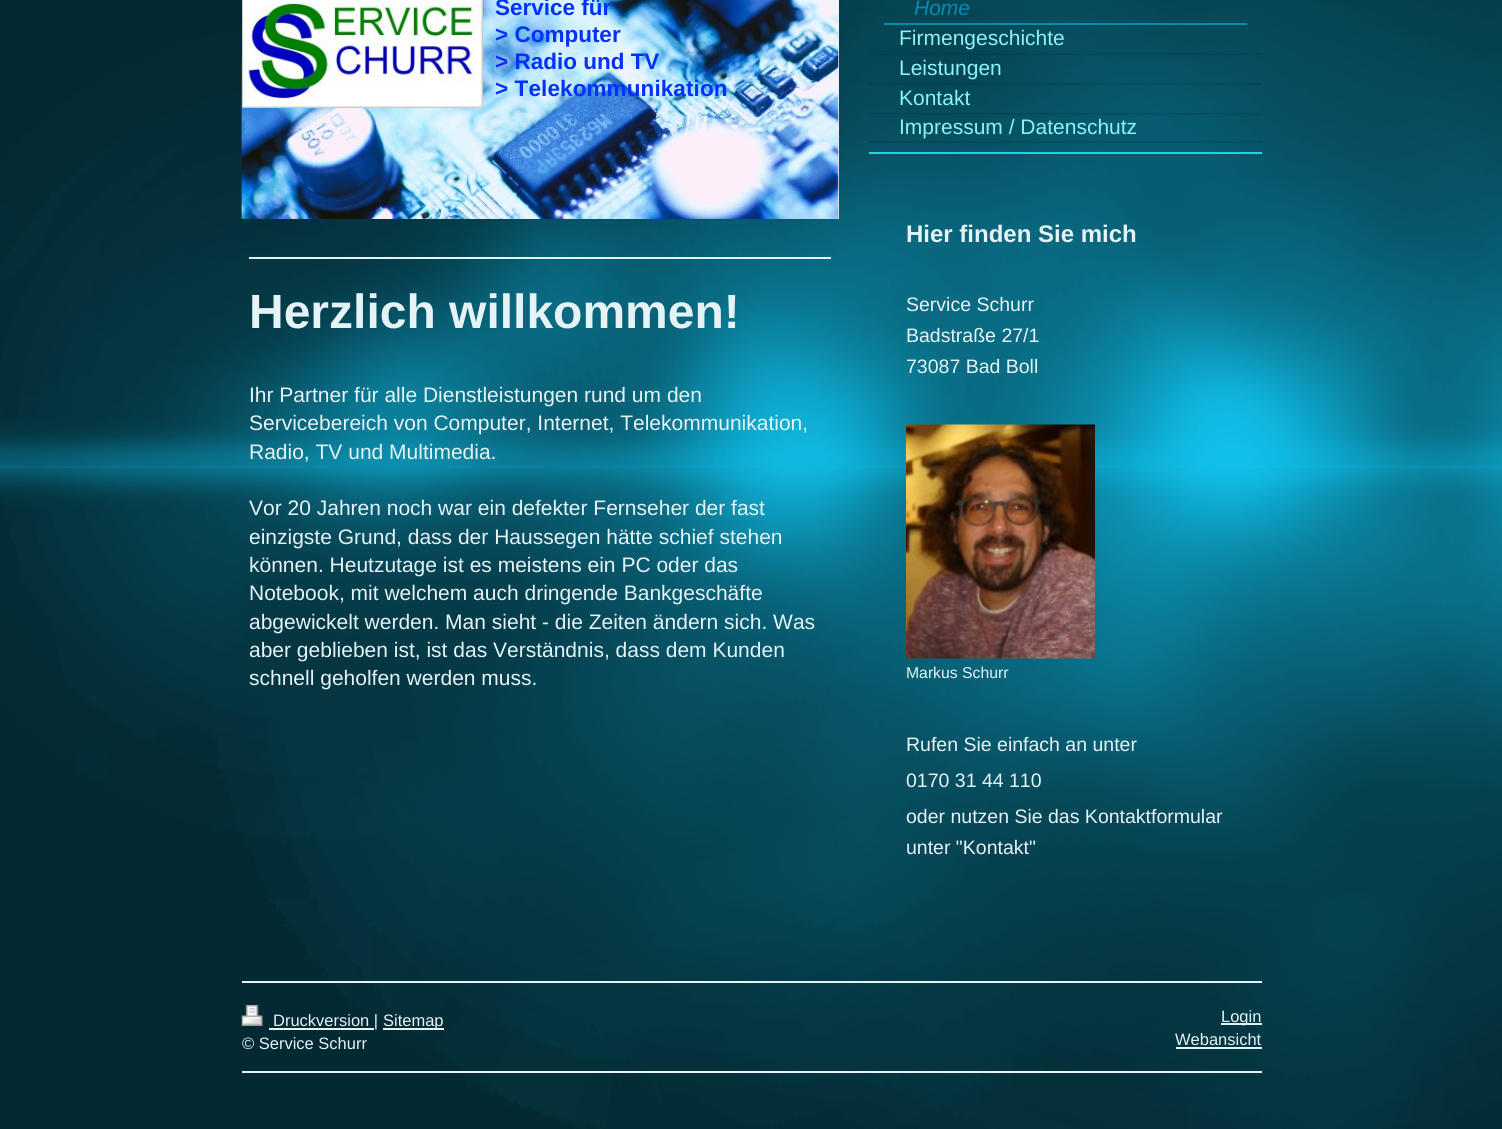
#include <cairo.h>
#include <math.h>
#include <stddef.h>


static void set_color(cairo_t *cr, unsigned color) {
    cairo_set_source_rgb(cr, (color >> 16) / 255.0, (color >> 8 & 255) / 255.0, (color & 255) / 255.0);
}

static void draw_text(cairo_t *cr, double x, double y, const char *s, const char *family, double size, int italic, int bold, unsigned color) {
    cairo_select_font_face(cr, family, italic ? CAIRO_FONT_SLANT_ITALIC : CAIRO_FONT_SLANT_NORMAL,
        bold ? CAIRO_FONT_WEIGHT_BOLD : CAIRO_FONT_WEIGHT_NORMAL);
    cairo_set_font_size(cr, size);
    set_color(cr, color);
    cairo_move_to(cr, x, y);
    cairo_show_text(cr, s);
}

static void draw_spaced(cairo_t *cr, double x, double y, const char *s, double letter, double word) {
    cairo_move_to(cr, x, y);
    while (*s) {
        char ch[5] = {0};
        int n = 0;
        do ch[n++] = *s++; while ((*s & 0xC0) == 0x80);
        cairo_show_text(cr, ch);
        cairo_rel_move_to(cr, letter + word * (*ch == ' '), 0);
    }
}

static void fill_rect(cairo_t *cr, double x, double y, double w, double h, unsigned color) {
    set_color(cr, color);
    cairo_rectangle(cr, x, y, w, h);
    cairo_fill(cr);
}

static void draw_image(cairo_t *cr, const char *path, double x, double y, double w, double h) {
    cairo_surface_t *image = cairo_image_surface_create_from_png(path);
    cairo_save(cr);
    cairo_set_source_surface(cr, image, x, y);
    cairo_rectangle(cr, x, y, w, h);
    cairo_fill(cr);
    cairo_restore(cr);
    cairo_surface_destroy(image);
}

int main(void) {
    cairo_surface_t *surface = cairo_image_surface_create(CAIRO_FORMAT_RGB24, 1502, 1129);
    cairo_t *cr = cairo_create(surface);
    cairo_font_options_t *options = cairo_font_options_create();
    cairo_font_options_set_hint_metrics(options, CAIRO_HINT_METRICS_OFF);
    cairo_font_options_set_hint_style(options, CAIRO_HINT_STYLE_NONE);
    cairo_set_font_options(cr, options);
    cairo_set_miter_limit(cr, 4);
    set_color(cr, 0x11CEFC);
    cairo_paint(cr);
    draw_image(cr, "assets/img1.png", 0, 0, 1502, 1129);
    draw_image(cr, "assets/img2.png", 241, 0, 1, 219);
    fill_rect(cr, 838, 0, 1, 219, 0xEEEEEE);
    draw_image(cr, "assets/img4.png", 241, 0, 598, 219);
    cairo_rectangle(cr, 243, -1, 239, 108);
    set_color(cr, 0xCCCCCC);
    cairo_stroke(cr);
    draw_image(cr, "assets/img3.png", 243, 0, 239, 107);
    draw_text(cr, 495, 15, "Service für", "Liberation Sans", 22.5, 0, 1, 0x0231F9);
    draw_text(cr, 495, 42, "> Computer", "Liberation Sans", 22.5, 0, 1, 0x0231F9);
    draw_text(cr, 495, 69, "> Radio und TV", "Liberation Sans", 22.5, 0, 1, 0x0231F9);
    draw_spaced(cr, 495, 96, "> Telekommunikation", 0.1, 0);
    fill_rect(cr, 249, 257, 582, 2, 0xE6F3F6);
    draw_text(cr, 249, 328, "Herzlich willkommen!", "Liberation Sans", 48, 0, 1, 0xE6F3F6);
    draw_text(cr, 249, 402, "Ihr Partner für alle Dienstleistungen rund um den", "Liberation Sans", 21, 0, 0, 0xE6F3F6);
    draw_text(cr, 249, 430, "Servicebereich von Computer, Internet, Telekommunikation,", "Liberation Sans", 21, 0, 0, 0xE6F3F6);
    draw_text(cr, 249, 459, "Radio, TV und Multimedia.", "Liberation Sans", 21, 0, 0, 0xE6F3F6);
    draw_text(cr, 249, 515, "Vor 20 Jahren noch war ein defekter Fernseher der fast", "Liberation Sans", 21, 0, 0, 0xE6F3F6);
    draw_text(cr, 249, 544, "einzigste Grund, dass der Haussegen hätte schief stehen", "Liberation Sans", 21, 0, 0, 0xE6F3F6);
    draw_text(cr, 249, 572, "können. Heutzutage ist es meistens ein PC oder das", "Liberation Sans", 21, 0, 0, 0xE6F3F6);
    draw_text(cr, 249, 600, "Notebook, mit welchem auch dringende Bankgeschäfte", "Liberation Sans", 21, 0, 0, 0xE6F3F6);
    draw_text(cr, 249, 629, "abgewickelt werden. Man sieht - die Zeiten ändern sich. Was", "Liberation Sans", 21, 0, 0, 0xE6F3F6);
    draw_text(cr, 249, 657, "aber geblieben ist, ist das Verständnis, dass dem Kunden", "Liberation Sans", 21, 0, 0, 0xE6F3F6);
    draw_text(cr, 249, 685, "schnell geholfen werden muss.", "Liberation Sans", 21, 0, 0, 0xE6F3F6);
    fill_rect(cr, 884, 23, 363, 2, 0x048CAE);
    draw_text(cr, 914, 15, "Home", "Liberation Sans", 21, 1, 0, 0x048CAE);
    cairo_set_source_rgba(cr, 0, 0, 0, 0.1);
    cairo_rectangle(cr, 869, 53, 393, 2);
    cairo_fill(cr);
    draw_text(cr, 899, 45, "Firmengeschichte", "Liberation Sans", 21, 0, 0, 0x8CF3F7);
    cairo_set_source_rgba(cr, 0, 0, 0, 0.1);
    cairo_rectangle(cr, 869, 83, 393, 2);
    cairo_fill(cr);
    draw_text(cr, 899, 75, "Leistungen", "Liberation Sans", 21, 0, 0, 0x8CF3F7);
    cairo_set_source_rgba(cr, 0, 0, 0, 0.1);
    cairo_rectangle(cr, 869, 113, 393, 2);
    cairo_fill(cr);
    draw_text(cr, 899, 105, "Kontakt", "Liberation Sans", 21, 0, 0, 0x8CF3F7);
    cairo_set_source_rgba(cr, 0, 0, 0, 0.1);
    cairo_rectangle(cr, 869, 141, 393, 2);
    cairo_fill(cr);
    draw_text(cr, 899, 134, "Impressum / Datenschutz", "Liberation Sans", 21, 0, 0, 0x8CF3F7);
    fill_rect(cr, 869, 152, 393, 2, 0x1CD6DE);
    draw_text(cr, 906, 242, "Hier finden Sie mich", "Liberation Sans", 24, 0, 1, 0xE6F3F6);
    draw_text(cr, 906, 311, "Service Schurr", "Liberation Sans", 19.5, 0, 0, 0xE6F3F6);
    draw_text(cr, 906, 342, "Badstraße 27/1", "Liberation Sans", 19.5, 0, 0, 0xE6F3F6);
    draw_text(cr, 906, 373, "73087 Bad Boll", "Liberation Sans", 19.5, 0, 0, 0xE6F3F6);
    draw_image(cr, "assets/img5.png", 906, 424, 189, 235);
    draw_text(cr, 906, 678, "Markus Schurr", "Liberation Sans", 15.75, 0, 0, 0xE6F3F6);
    draw_text(cr, 906, 751, "Rufen Sie einfach an unter", "Liberation Sans", 19.5, 0, 0, 0xE6F3F6);
    draw_text(cr, 906, 787, "0170 31 44 110", "Liberation Sans", 19.5, 0, 0, 0xE6F3F6);
    draw_text(cr, 906, 823, "oder nutzen Sie das Kontaktformular", "Liberation Sans", 19.5, 0, 0, 0xE6F3F6);
    draw_text(cr, 906, 854, "unter \"Kontakt\"", "Liberation Sans", 19.5, 0, 0, 0xE6F3F6);
    fill_rect(cr, 242, 981, 1020, 2, 0xE6F3F6);
    fill_rect(cr, 242, 1071, 1020, 2, 0xE6F3F6);
    draw_image(cr, "assets/img6.png", 241, 1005, 22, 21);
    fill_rect(cr, 269, 1028, 105, 2, 0xE6F3F6);
    draw_text(cr, 273, 1026, "Druckversion |", "Liberation Sans", 16.5, 0, 0, 0xE6F3F6);
    fill_rect(cr, 383, 1028, 61, 2, 0xE6F3F6);
    draw_text(cr, 383, 1026, "Sitemap", "Liberation Sans", 16.5, 0, 0, 0xE6F3F6);
    cairo_save(cr);
    cairo_rectangle(cr, 242, 983, 1020, 88);
    cairo_clip(cr);
    draw_text(cr, 242, 1049, "© Service Schurr", "Liberation Sans", 16.5, 0, 0, 0xE6F3F6);
    cairo_restore(cr);
    fill_rect(cr, 1221, 1023, 41, 2, 0xE6F3F6);
    draw_text(cr, 1221, 1022, "Login", "Liberation Sans", 16.5, 0, 0, 0xE6F3F6);
    draw_text(cr, 1175, 1045, "Webansicht", "Liberation Sans", 16.5, 0, 0, 0xE6F3F6);
    fill_rect(cr, 1176, 1047, 86, 2, 0xE6F3F6);
    cairo_surface_write_to_png(surface, "output.png");
    cairo_font_options_destroy(options);
    cairo_destroy(cr);
    cairo_surface_destroy(surface);
    return 0;
}
